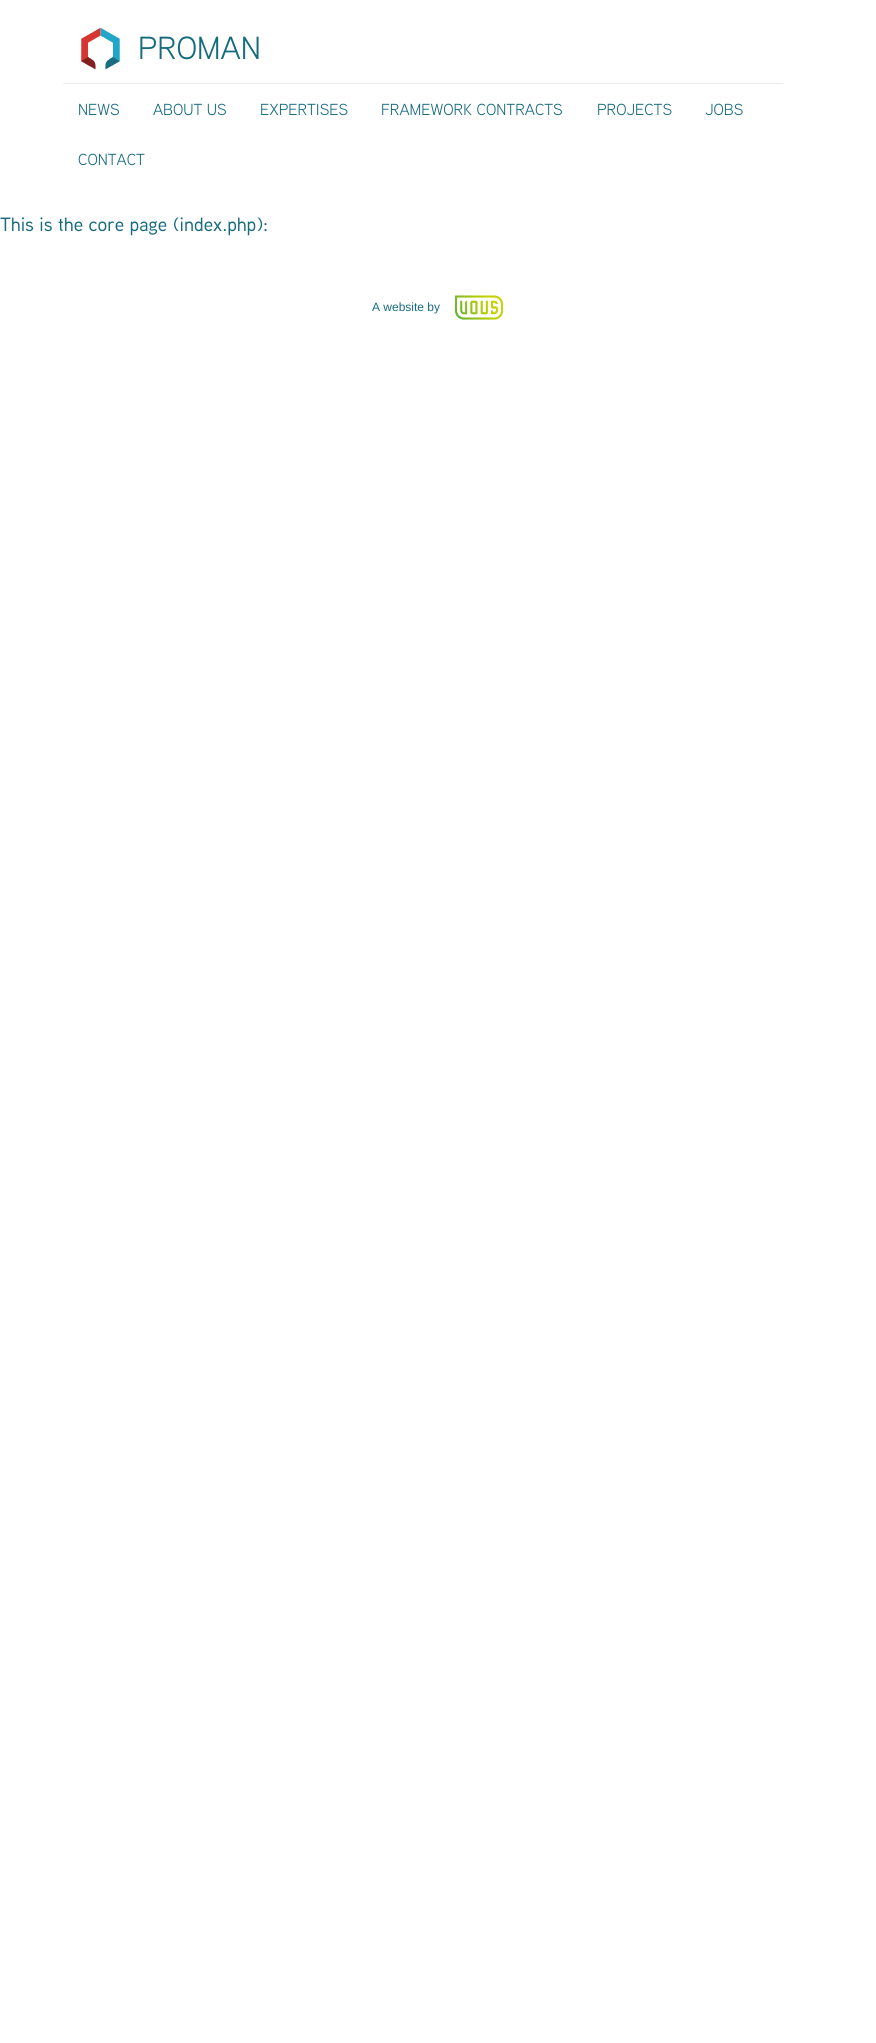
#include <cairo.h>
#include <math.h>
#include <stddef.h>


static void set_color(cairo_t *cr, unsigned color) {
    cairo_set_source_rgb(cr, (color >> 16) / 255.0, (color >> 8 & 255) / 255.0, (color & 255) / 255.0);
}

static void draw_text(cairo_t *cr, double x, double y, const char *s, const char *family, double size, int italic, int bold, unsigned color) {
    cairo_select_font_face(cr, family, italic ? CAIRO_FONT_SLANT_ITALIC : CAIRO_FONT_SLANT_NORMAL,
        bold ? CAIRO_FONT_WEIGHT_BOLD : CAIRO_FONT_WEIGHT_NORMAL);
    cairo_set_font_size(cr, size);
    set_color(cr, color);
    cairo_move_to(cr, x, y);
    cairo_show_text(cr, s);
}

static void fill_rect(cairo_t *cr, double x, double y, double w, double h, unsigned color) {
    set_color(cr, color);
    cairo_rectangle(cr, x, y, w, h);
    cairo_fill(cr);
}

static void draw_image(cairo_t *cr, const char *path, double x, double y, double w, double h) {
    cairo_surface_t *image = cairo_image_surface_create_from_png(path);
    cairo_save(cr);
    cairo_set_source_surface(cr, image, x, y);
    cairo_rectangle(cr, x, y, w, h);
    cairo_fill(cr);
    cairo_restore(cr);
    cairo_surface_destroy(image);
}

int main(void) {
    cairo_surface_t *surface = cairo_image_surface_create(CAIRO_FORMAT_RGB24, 876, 2043);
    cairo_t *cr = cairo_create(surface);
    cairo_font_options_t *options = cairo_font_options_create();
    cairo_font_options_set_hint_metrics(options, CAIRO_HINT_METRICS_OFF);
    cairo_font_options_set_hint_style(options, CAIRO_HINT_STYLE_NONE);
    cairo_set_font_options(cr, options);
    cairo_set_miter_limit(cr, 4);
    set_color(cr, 0xFFFFFF);
    cairo_paint(cr);
    draw_image(cr, "assets/img1.png", 81, 27, 39, 43);
    draw_text(cr, 138, 59, "PROMAN", "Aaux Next", 32, 0, 0, 0x166B7F);
    fill_rect(cr, 63, 83, 720, 1, 0xEBEBEB);
    draw_text(cr, 78, 115, "NEWS", "Aaux Next", 16, 0, 0, 0x166B7F);
    draw_text(cr, 153, 115, "ABOUT US", "Aaux Next", 16, 0, 0, 0x166B7F);
    draw_text(cr, 260, 115, "EXPERTISES", "Aaux Next", 16, 0, 0, 0x166B7F);
    draw_text(cr, 381, 115, "FRAMEWORK CONTRACTS", "Aaux Next", 16, 0, 0, 0x166B7F);
    draw_text(cr, 597, 115, "PROJECTS", "Aaux Next", 16, 0, 0, 0x166B7F);
    draw_text(cr, 705, 115, "JOBS", "Aaux Next", 16, 0, 0, 0x166B7F);
    draw_text(cr, 78, 165, "CONTACT", "Aaux Next", 16, 0, 0, 0x166B7F);
    draw_text(cr, 0, 231, "This is the core page (index.php):", "Aaux Next Medium", 19.25, 0, 0, 0x166B7F);
    draw_text(cr, 372, 311, "A website by", "Liberation Sans", 12, 0, 0, 0x166B7F);
    draw_image(cr, "assets/img2.png", 455, 295, 49, 25);
    cairo_surface_write_to_png(surface, "output.png");
    cairo_font_options_destroy(options);
    cairo_destroy(cr);
    cairo_surface_destroy(surface);
    return 0;
}
